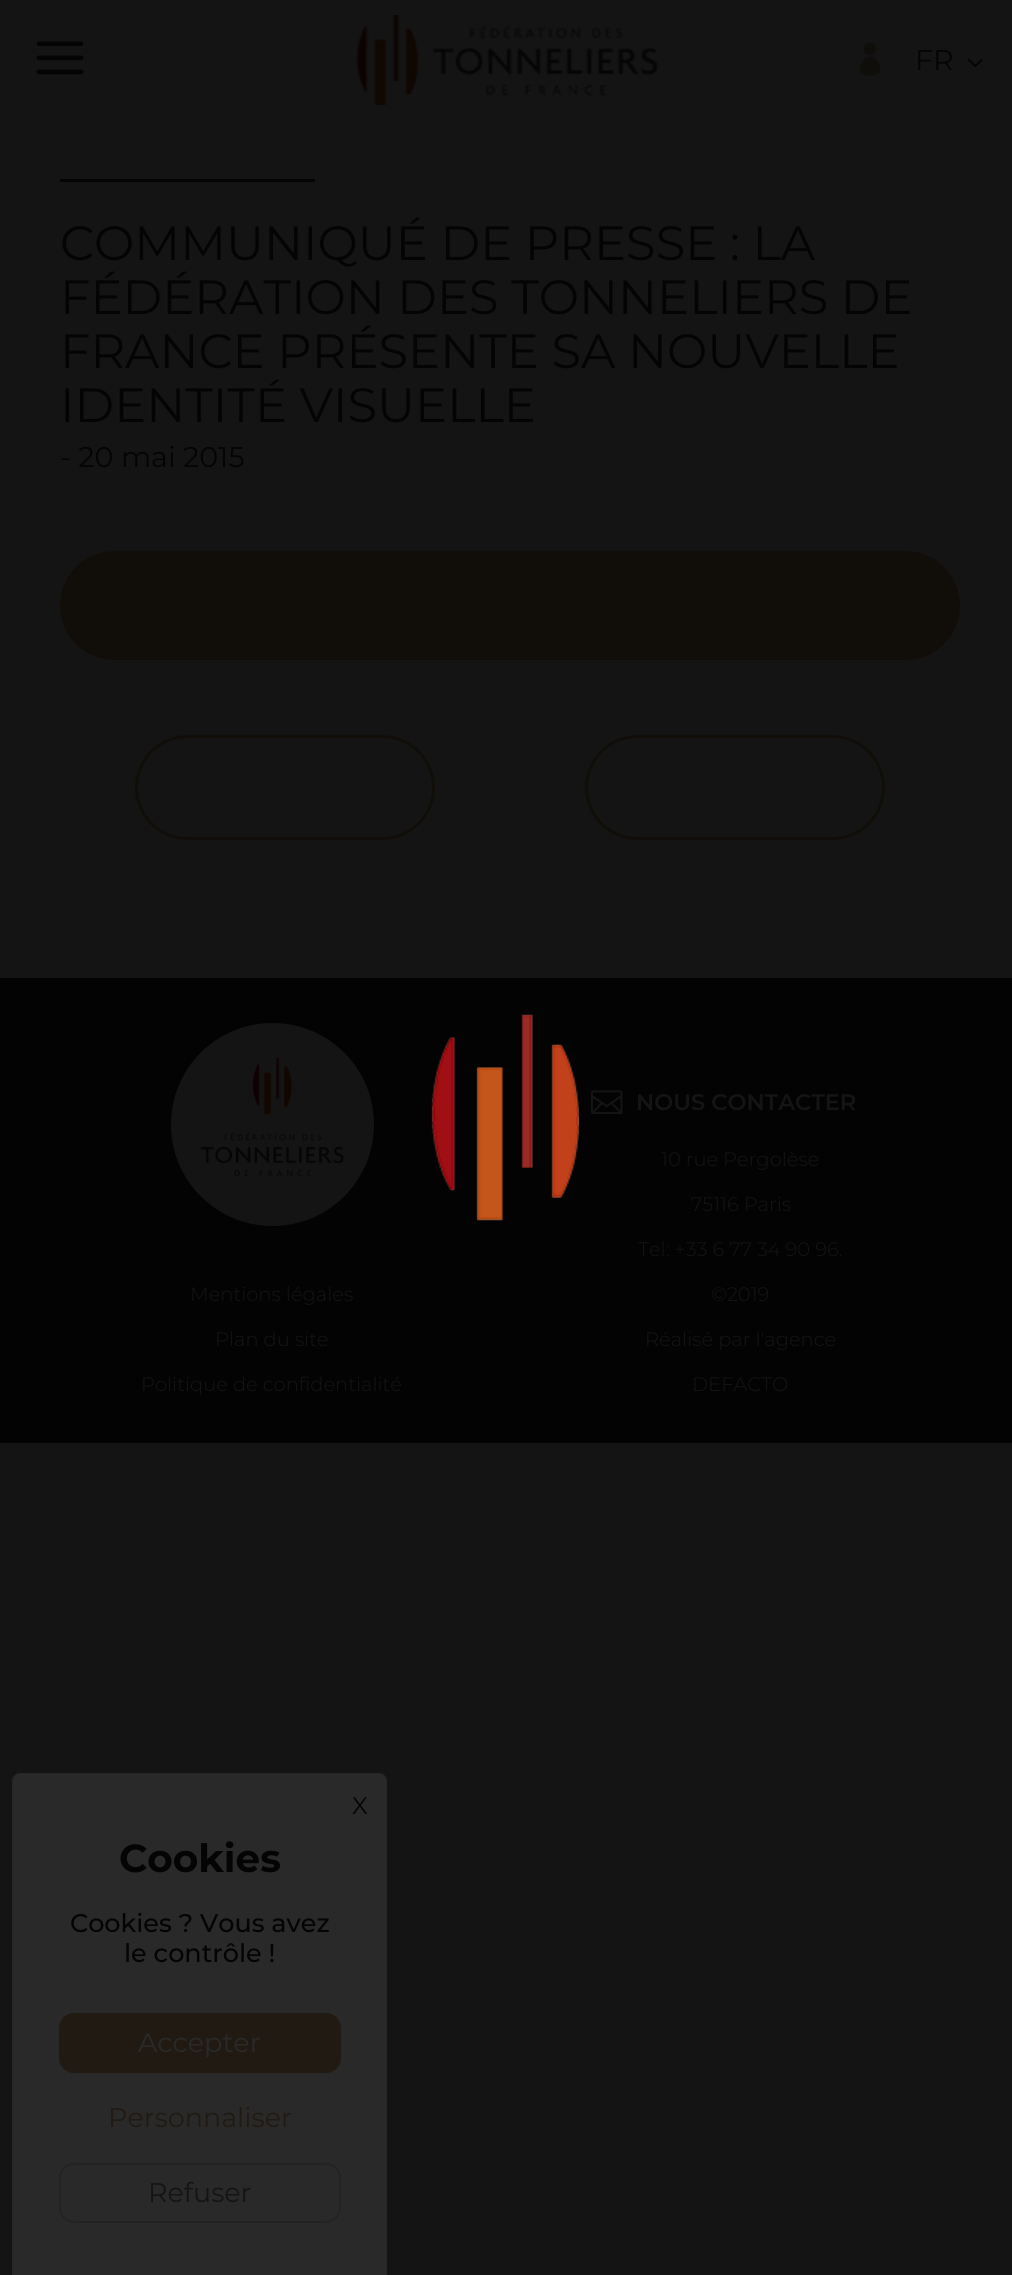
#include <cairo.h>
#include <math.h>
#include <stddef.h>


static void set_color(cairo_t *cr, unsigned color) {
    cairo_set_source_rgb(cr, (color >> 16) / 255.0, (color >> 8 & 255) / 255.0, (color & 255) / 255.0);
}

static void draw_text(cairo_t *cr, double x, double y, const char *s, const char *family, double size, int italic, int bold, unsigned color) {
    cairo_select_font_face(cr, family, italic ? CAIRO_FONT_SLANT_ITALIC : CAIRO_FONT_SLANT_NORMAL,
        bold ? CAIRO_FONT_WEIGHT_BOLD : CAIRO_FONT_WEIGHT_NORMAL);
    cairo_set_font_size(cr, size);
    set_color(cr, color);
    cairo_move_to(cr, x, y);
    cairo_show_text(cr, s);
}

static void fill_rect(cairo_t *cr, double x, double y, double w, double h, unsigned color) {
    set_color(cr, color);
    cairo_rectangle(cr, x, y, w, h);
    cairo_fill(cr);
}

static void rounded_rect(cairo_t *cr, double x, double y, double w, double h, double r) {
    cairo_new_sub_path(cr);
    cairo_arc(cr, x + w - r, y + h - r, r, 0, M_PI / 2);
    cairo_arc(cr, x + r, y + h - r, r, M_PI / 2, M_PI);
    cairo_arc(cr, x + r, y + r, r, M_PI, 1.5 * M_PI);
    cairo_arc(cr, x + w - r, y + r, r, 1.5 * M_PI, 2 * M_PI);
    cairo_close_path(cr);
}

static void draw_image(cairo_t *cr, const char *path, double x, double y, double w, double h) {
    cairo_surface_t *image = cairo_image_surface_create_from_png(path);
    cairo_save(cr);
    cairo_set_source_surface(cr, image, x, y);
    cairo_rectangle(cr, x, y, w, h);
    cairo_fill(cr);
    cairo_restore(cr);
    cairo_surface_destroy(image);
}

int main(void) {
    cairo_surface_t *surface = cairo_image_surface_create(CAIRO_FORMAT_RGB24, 1012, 2275);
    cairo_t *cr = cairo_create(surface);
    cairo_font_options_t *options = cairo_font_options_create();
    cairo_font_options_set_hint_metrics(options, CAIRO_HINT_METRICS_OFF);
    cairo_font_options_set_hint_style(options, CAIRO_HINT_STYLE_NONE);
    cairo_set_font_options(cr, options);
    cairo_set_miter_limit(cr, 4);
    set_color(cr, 0x141414);
    cairo_paint(cr);
    draw_image(cr, "assets/img1.png", 36, 41, 48, 34);
    draw_image(cr, "assets/img2.png", 356, 15, 302, 90);
    draw_image(cr, "assets/img3.png", 859, 42, 22, 34);
    draw_text(cr, 915, 70, "FR", "Montserrat", 28.5, 0, 0, 0x040404);
    draw_image(cr, "assets/img4.png", 967, 58, 16, 10);
    fill_rect(cr, 60, 179, 255, 3, 0x040404);
    draw_text(cr, 60, 260, "COMMUNIQUÉ DE PRESSE : LA", "Montserrat", 48, 0, 0, 0x040404);
    draw_text(cr, 60, 314, "FÉDÉRATION DES TONNELIERS DE", "Montserrat", 48, 0, 0, 0x040404);
    draw_text(cr, 60, 368, "FRANCE PRÉSENTE SA NOUVELLE", "Montserrat", 48, 0, 0, 0x040404);
    draw_text(cr, 60, 422, "IDENTITÉ VISUELLE", "Montserrat", 48, 0, 0, 0x040404);
    draw_text(cr, 60, 467, "- 20 mai 2015", "Montserrat", 28.5, 0, 0, 0x040404);
    set_color(cr, 0x110E09);
    rounded_rect(cr, 61.5, 552.5, 897, 106, 53);
    cairo_fill_preserve(cr);
    cairo_set_line_width(cr, 3);
    cairo_stroke(cr);
    rounded_rect(cr, 136.5, 736.5, 297, 102, 51);
    cairo_stroke(cr);
    rounded_rect(cr, 586.5, 736.5, 297, 102, 51);
    cairo_stroke(cr);
    fill_rect(cr, 0, 978, 1012, 465, 0x030303);
    set_color(cr, 0x141414);
    cairo_arc(cr, 272.5, 1124.5, 101.5, 0, 2 * M_PI);
    cairo_fill(cr);
    draw_image(cr, "assets/img5.png", 201, 1057, 143, 119);
    draw_image(cr, "assets/img6.png", 591, 1090, 32, 24);
    draw_text(cr, 636, 1110, "NOUS CONTACTER", "Montserrat SemiBold", 22.5, 0, 0, 0x141414);
    draw_text(cr, 661, 1166, "10 rue Pergolèse", "Montserrat Light", 19.5, 0, 0, 0x141414);
    draw_text(cr, 691, 1211, "75116 Paris", "Montserrat Light", 19.5, 0, 0, 0x141414);
    draw_text(cr, 638, 1256, "Tel: +33 6 77 34 90 96.", "Montserrat Light", 19.5, 0, 0, 0x141414);
    draw_text(cr, 190, 1301, "Mentions légales", "Montserrat Light", 19.5, 0, 0, 0x141414);
    draw_text(cr, 215, 1346, "Plan du site", "Montserrat Light", 19.5, 0, 0, 0x141414);
    draw_text(cr, 141, 1391, "Politique de confidentialité", "Montserrat Light", 19.5, 0, 0, 0x141414);
    draw_text(cr, 711, 1301, "©2019", "Montserrat Light", 19.5, 0, 0, 0x141414);
    draw_text(cr, 645, 1346, "Réalisé par l'agence", "Montserrat Light", 19.5, 0, 0, 0x141414);
    draw_text(cr, 692, 1391, "DEFACTO", "Montserrat Light", 19.5, 0, 0, 0x141414);
    draw_image(cr, "assets/img7.png", 431, 1037, 24, 154);
    draw_image(cr, "assets/img8.png", 476, 1067, 27, 154);
    draw_image(cr, "assets/img9.png", 521, 1014, 12, 154);
    draw_image(cr, "assets/img10.png", 551, 1044, 28, 154);
    set_color(cr, 0x292929);
    cairo_new_path(cr);
    cairo_move_to(cr, 20, 1773);
    cairo_line_to(cr, 379, 1773);
    cairo_curve_to(cr, 383.5, 1773, 387, 1776.5, 387, 1781);
    cairo_line_to(cr, 387, 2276);
    cairo_line_to(cr, 12, 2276);
    cairo_line_to(cr, 12, 1781);
    cairo_curve_to(cr, 12, 1776.5, 15.5, 1773, 20, 1773);
    cairo_close_path(cr);
    cairo_fill(cr);
    cairo_set_source_rgba(cr, 0, 0, 0, 0.08);
    cairo_set_fill_rule(cr, CAIRO_FILL_RULE_EVEN_ODD);
    cairo_new_path(cr);
    cairo_move_to(cr, 20, 1773);
    cairo_line_to(cr, 380, 1773);
    cairo_curve_to(cr, 384, 1773, 387, 1776, 387, 1780);
    cairo_line_to(cr, 387, 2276);
    cairo_line_to(cr, 12, 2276);
    cairo_line_to(cr, 12, 1780);
    cairo_curve_to(cr, 12, 1776, 15, 1773, 20, 1773);
    cairo_close_path(cr);
    cairo_move_to(cr, 20, 1774);
    cairo_line_to(cr, 380, 1774);
    cairo_curve_to(cr, 383, 1774, 386, 1777, 386, 1780);
    cairo_line_to(cr, 386, 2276);
    cairo_line_to(cr, 14, 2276);
    cairo_line_to(cr, 14, 1780);
    cairo_curve_to(cr, 14, 1777, 16, 1774, 20, 1774);
    cairo_close_path(cr);
    cairo_fill(cr);
    draw_text(cr, 352, 1814, "X", "Montserrat", 24, 0, 0, 0x040404);
    draw_text(cr, 119, 1872, "Cookies", "Montserrat", 39, 0, 1, 0x040404);
    draw_text(cr, 70, 1932, "Cookies ? Vous avez", "Montserrat Medium", 25.5, 0, 0, 0x040404);
    draw_text(cr, 124, 1962, "le contrôle !", "Montserrat Medium", 25.5, 0, 0, 0x040404);
    set_color(cr, 0x211A13);
    rounded_rect(cr, 59, 2013, 282, 60, 15);
    cairo_fill(cr);
    draw_text(cr, 138, 2052, "Accepter", "Montserrat", 27, 0, 0, 0x292929);
    draw_text(cr, 108, 2127, "Personnaliser", "Montserrat", 27, 0, 0, 0x211A13);
    rounded_rect(cr, 60, 2164, 280, 58, 14);
    set_color(cr, 0x232324);
    cairo_set_line_width(cr, 2);
    cairo_stroke(cr);
    draw_text(cr, 148, 2202, "Refuser", "Montserrat", 27, 0, 0, 0x141414);
    cairo_surface_write_to_png(surface, "output.png");
    cairo_font_options_destroy(options);
    cairo_destroy(cr);
    cairo_surface_destroy(surface);
    return 0;
}
